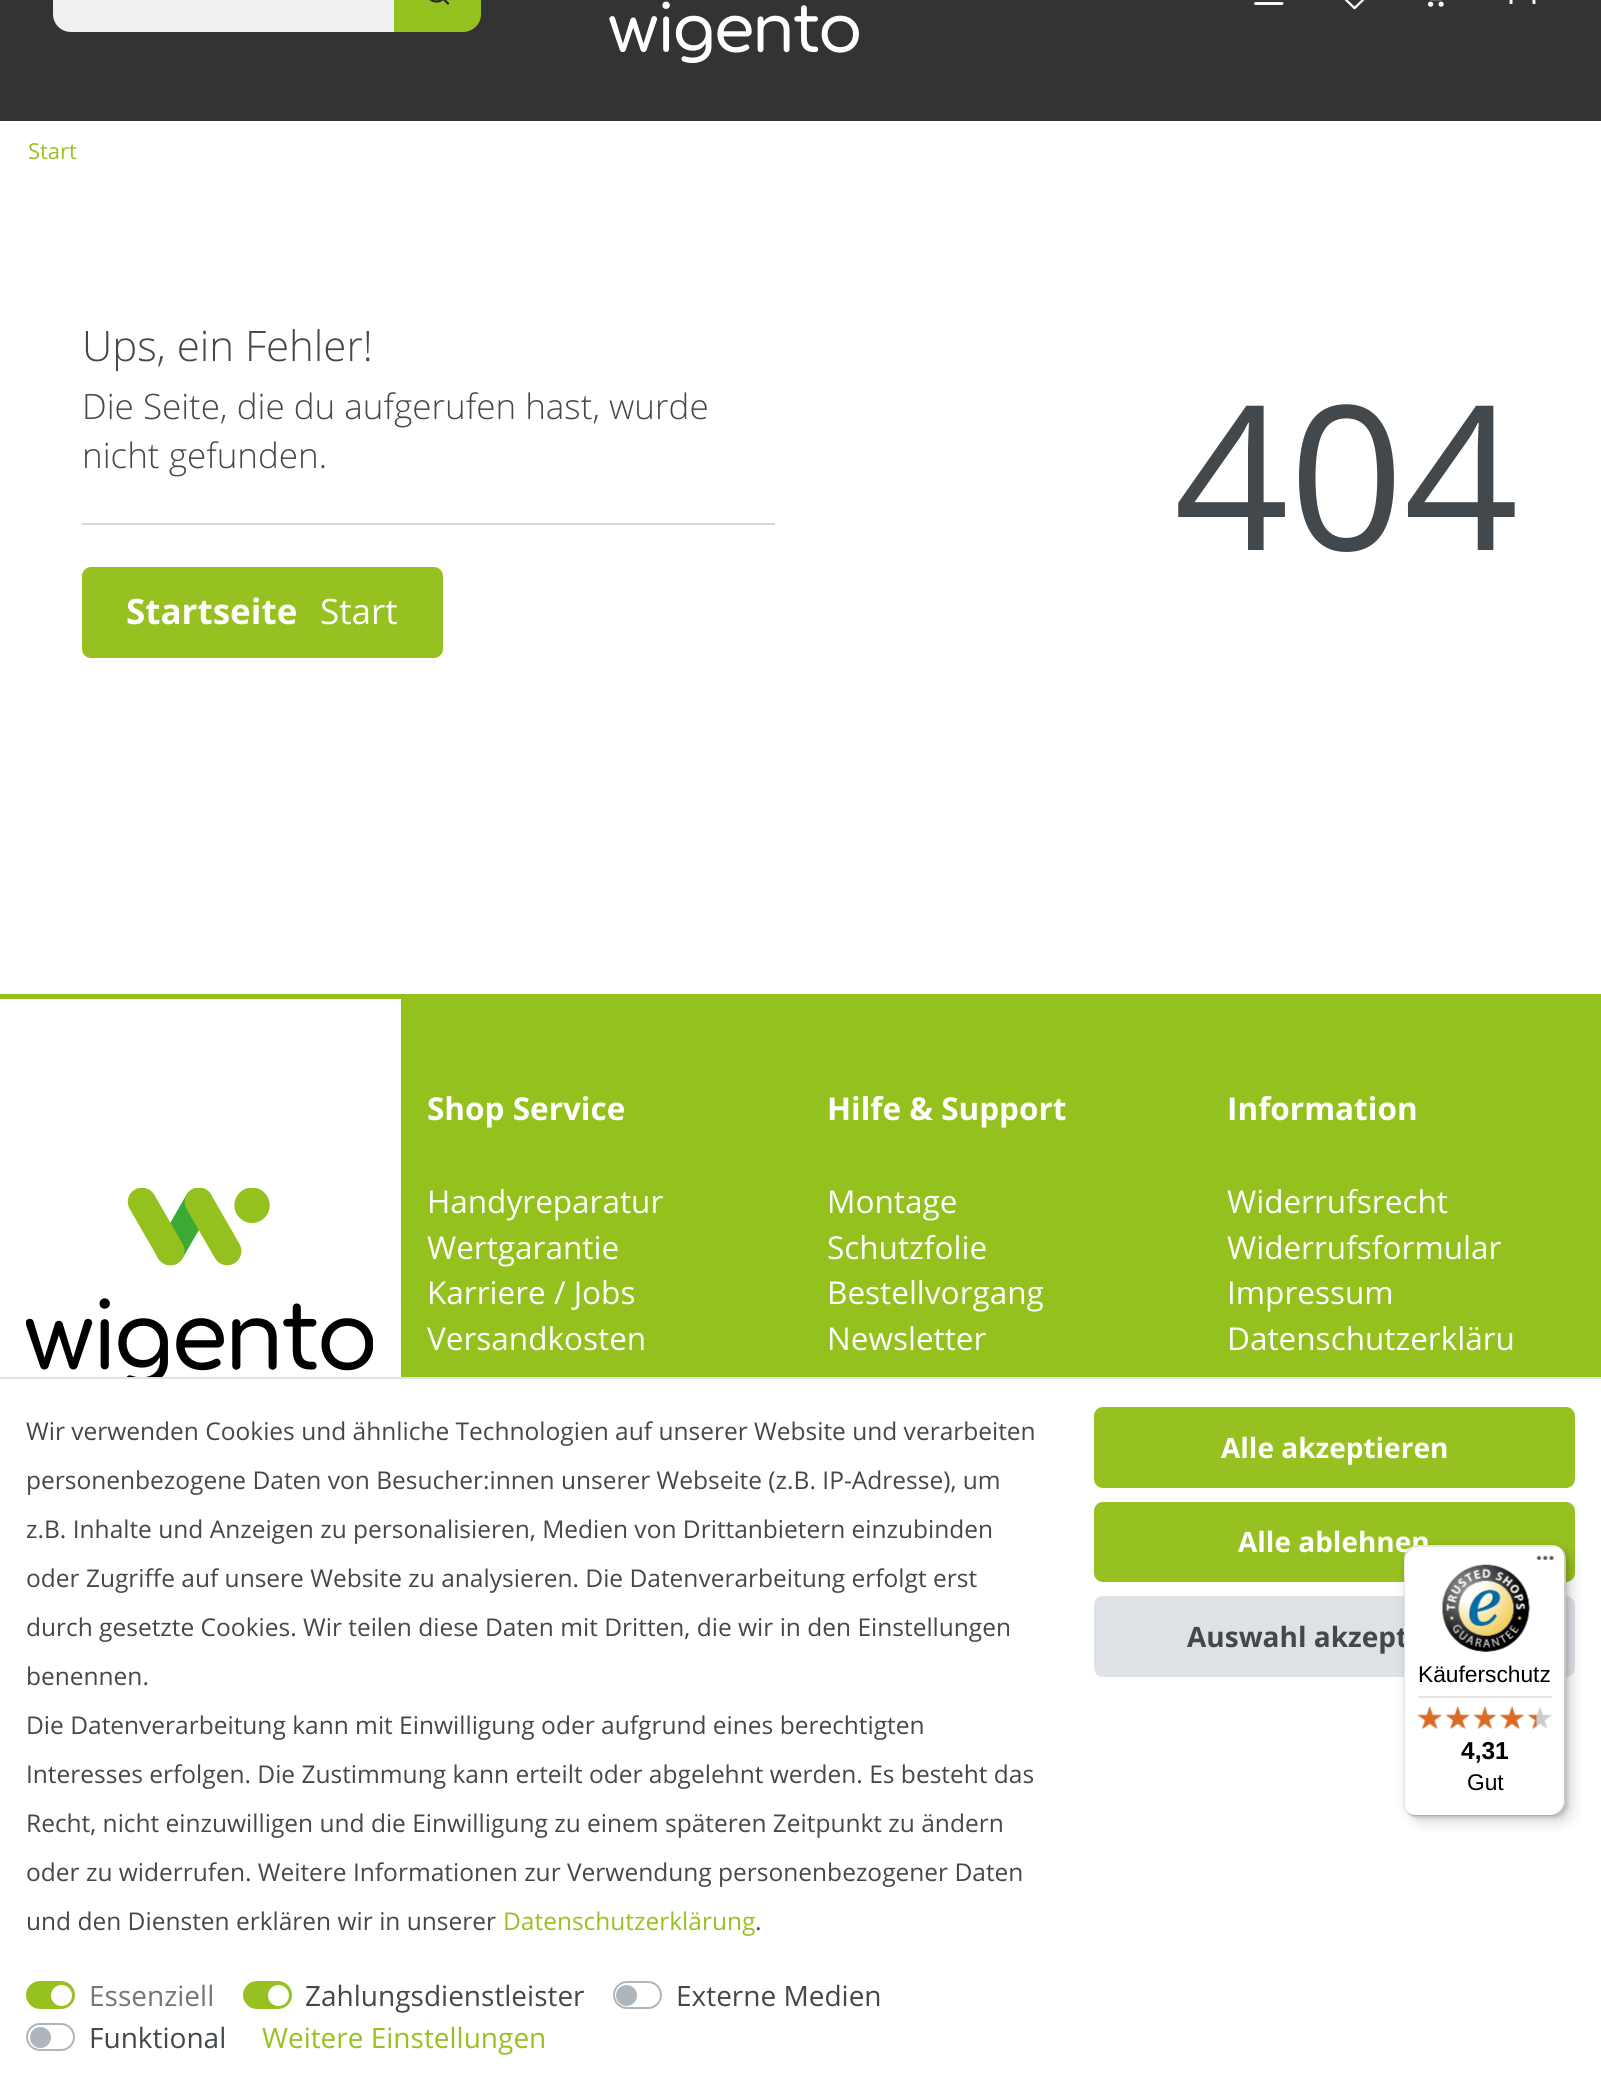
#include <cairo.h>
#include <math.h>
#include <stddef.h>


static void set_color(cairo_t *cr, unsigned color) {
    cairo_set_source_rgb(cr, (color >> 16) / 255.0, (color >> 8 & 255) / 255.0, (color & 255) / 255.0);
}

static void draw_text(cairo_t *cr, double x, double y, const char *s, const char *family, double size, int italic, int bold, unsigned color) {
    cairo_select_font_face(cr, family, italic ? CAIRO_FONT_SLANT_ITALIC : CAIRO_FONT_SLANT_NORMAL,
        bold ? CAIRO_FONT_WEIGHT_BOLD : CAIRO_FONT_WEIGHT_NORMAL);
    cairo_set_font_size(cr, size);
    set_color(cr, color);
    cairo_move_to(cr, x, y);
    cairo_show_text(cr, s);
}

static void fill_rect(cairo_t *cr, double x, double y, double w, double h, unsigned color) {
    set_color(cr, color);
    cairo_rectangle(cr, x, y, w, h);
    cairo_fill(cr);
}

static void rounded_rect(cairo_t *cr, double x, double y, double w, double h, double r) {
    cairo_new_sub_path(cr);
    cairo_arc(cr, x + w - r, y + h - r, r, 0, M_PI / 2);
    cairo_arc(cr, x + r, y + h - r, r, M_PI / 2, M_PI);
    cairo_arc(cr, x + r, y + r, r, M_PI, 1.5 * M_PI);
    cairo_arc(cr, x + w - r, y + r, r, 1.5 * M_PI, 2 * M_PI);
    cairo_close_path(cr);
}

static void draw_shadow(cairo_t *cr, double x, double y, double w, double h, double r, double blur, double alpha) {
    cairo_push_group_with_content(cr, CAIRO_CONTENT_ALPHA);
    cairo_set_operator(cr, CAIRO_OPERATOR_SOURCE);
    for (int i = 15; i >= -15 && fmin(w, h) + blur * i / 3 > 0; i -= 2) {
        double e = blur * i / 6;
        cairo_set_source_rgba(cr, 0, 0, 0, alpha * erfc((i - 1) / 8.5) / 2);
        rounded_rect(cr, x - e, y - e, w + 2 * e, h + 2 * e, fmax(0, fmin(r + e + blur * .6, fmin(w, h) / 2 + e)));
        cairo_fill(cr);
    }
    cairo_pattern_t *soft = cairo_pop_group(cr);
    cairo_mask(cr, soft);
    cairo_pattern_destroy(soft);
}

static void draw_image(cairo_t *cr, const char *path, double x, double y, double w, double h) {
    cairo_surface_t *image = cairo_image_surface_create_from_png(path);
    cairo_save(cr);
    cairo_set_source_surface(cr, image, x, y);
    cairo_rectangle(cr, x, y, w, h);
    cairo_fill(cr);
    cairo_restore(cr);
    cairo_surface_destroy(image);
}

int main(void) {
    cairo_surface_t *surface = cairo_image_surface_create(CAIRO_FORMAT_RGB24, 1601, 2085);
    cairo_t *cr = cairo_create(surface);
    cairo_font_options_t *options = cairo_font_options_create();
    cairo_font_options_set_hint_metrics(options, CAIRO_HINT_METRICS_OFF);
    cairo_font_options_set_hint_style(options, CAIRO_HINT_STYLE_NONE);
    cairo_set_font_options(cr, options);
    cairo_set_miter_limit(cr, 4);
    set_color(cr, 0xFFFFFF);
    cairo_paint(cr);
    fill_rect(cr, 0, 0, 1601, 121, 0x333333);
    set_color(cr, 0xF0F0F0);
    cairo_new_path(cr);
    cairo_move_to(cr, 71, -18);
    cairo_line_to(cr, 394, -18);
    cairo_line_to(cr, 394, 32);
    cairo_line_to(cr, 71, 32);
    cairo_curve_to(cr, 61, 32, 53, 24, 53, 14);
    cairo_line_to(cr, 53, 0);
    cairo_curve_to(cr, 53, -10, 61, -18, 71, -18);
    cairo_close_path(cr);
    cairo_fill(cr);
    set_color(cr, 0x95C11F);
    cairo_new_path(cr);
    cairo_move_to(cr, 394, -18);
    cairo_line_to(cr, 463, -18);
    cairo_curve_to(cr, 473, -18, 481, -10, 481, 0);
    cairo_line_to(cr, 481, 14);
    cairo_curve_to(cr, 481, 24, 473, 32, 463, 32);
    cairo_line_to(cr, 394, 32);
    cairo_close_path(cr);
    cairo_fill(cr);
    cairo_arc(cr, 436.5, -8, 9.5, 0, 2 * M_PI);
    set_color(cr, 0x292C2F);
    cairo_set_line_width(cr, 2.3);
    cairo_stroke(cr);
    cairo_new_path(cr);
    cairo_move_to(cr, 448, 3.5);
    cairo_line_to(cr, 443, -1.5);
    cairo_set_line_cap(cr, CAIRO_LINE_CAP_ROUND);
    cairo_set_line_join(cr, CAIRO_LINE_JOIN_ROUND);
    cairo_stroke(cr);
    draw_image(cr, "assets/img1.png", 609, 1, 250, 62);
    cairo_new_path(cr);
    cairo_move_to(cr, 1255.5, 3.5);
    cairo_line_to(cr, 1282, 3.5);
    set_color(cr, 0xFFFFFF);
    cairo_set_line_width(cr, 2.9);
    cairo_stroke(cr);
    draw_image(cr, "assets/img2.png", 1344, 0, 21, 10);
    draw_image(cr, "assets/img3.png", 1428, 0, 16, 7);
    cairo_new_path(cr);
    cairo_move_to(cr, 1534, 2.5);
    cairo_curve_to(cr, 1534, -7, 1531, -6, 1522.5, -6);
    cairo_curve_to(cr, 1514, -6, 1511, -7, 1511, 2.5);
    cairo_set_line_cap(cr, CAIRO_LINE_CAP_SQUARE);
    cairo_set_line_join(cr, CAIRO_LINE_JOIN_MITER);
    cairo_stroke(cr);
    draw_text(cr, 28, 159, "Start", "Open Sans", 22, 0, 0, 0x97C120);
    draw_text(cr, 82, 361, "Ups, ein Fehler!", "Open Sans Light", 42, 0, 0, 0x43484D);
    draw_text(cr, 82, 419, "Die Seite, die du aufgerufen hast, wurde", "Open Sans Light", 35, 0, 0, 0x43484D);
    draw_text(cr, 82, 468, "nicht gefunden.", "Open Sans Light", 35, 0, 0, 0x43484D);
    fill_rect(cr, 82, 523, 693, 2, 0xD1D9E0);
    set_color(cr, 0x97C120);
    rounded_rect(cr, 83, 568, 359, 89, 8);
    cairo_fill_preserve(cr);
    cairo_set_line_width(cr, 2);
    cairo_set_line_cap(cr, CAIRO_LINE_CAP_BUTT);
    cairo_stroke(cr);
    draw_text(cr, 126, 624, "Startseite", "Open Sans", 35, 0, 1, 0xFFFFFF);
    draw_text(cr, 320, 624, "Start", "Open Sans", 35, 0, 0, 0xFFFFFF);
    draw_text(cr, 1174, 550, "404", "Open Sans", 201, 0, 0, 0x43484D);
    fill_rect(cr, 0, 994, 1601, 383, 0x95C11F);
    fill_rect(cr, 0, 999, 401, 378, 0xFFFFFF);
    draw_image(cr, "assets/img4.png", 26, 1188, 347, 189);
    draw_text(cr, 427, 1120, "Shop Service", "Open Sans", 31.5, 0, 1, 0xFFFFFF);
    draw_text(cr, 427, 1213, "Handyreparatur", "Open Sans", 31.5, 0, 0, 0xFFFFFF);
    draw_text(cr, 427, 1259, "Wertgarantie", "Open Sans", 31.5, 0, 0, 0xFFFFFF);
    draw_text(cr, 427, 1304, "Karriere / Jobs", "Open Sans", 31.5, 0, 0, 0xFFFFFF);
    draw_text(cr, 427, 1350, "Versandkosten", "Open Sans", 31.5, 0, 0, 0xFFFFFF);
    draw_text(cr, 827, 1120, "Hilfe & Support", "Open Sans", 31.5, 0, 1, 0xFFFFFF);
    draw_text(cr, 827, 1213, "Montage", "Open Sans", 31.5, 0, 0, 0xFFFFFF);
    draw_text(cr, 827, 1259, "Schutzfolie", "Open Sans", 31.5, 0, 0, 0xFFFFFF);
    draw_text(cr, 827, 1304, "Bestellvorgang", "Open Sans", 31.5, 0, 0, 0xFFFFFF);
    draw_text(cr, 827, 1350, "Newsletter", "Open Sans", 31.5, 0, 0, 0xFFFFFF);
    draw_text(cr, 1227, 1120, "Information", "Open Sans", 31.5, 0, 1, 0xFFFFFF);
    draw_text(cr, 1227, 1213, "Widerrufsrecht", "Open Sans", 31.5, 0, 0, 0xFFFFFF);
    draw_text(cr, 1227, 1259, "Widerrufsformular", "Open Sans", 31.5, 0, 0, 0xFFFFFF);
    draw_text(cr, 1227, 1304, "Impressum", "Open Sans", 31.5, 0, 0, 0xFFFFFF);
    draw_text(cr, 1227, 1350, "Datenschutzerkläru", "Open Sans", 31.5, 0, 0, 0xFFFFFF);
    fill_rect(cr, 0, 1377, 1601, 2, 0xDEE2E6);
    draw_text(cr, 26, 1440, "Wir verwenden Cookies und ähnliche Technologien auf unserer Website und verarbeiten", "Open Sans", 24.5, 0, 0, 0x43484D);
    draw_text(cr, 26, 1489, "personenbezogene Daten von Besucher:innen unserer Webseite (z.B. IP-Adresse), um", "Open Sans", 24.5, 0, 0, 0x43484D);
    draw_text(cr, 26, 1538, "z.B. Inhalte und Anzeigen zu personalisieren, Medien von Drittanbietern einzubinden", "Open Sans", 24.5, 0, 0, 0x43484D);
    draw_text(cr, 26, 1587, "oder Zugriffe auf unsere Website zu analysieren. Die Datenverarbeitung erfolgt erst", "Open Sans", 24.5, 0, 0, 0x43484D);
    draw_text(cr, 26, 1636, "durch gesetzte Cookies. Wir teilen diese Daten mit Dritten, die wir in den Einstellungen", "Open Sans", 24.5, 0, 0, 0x43484D);
    draw_text(cr, 26, 1685, "benennen.", "Open Sans", 24.5, 0, 0, 0x43484D);
    draw_text(cr, 26, 1734, "Die Datenverarbeitung kann mit Einwilligung oder aufgrund eines berechtigten", "Open Sans", 24.5, 0, 0, 0x43484D);
    draw_text(cr, 26, 1783, "Interesses erfolgen. Die Zustimmung kann erteilt oder abgelehnt werden. Es besteht das", "Open Sans", 24.5, 0, 0, 0x43484D);
    draw_text(cr, 26, 1832, "Recht, nicht einzuwilligen und die Einwilligung zu einem späteren Zeitpunkt zu ändern", "Open Sans", 24.5, 0, 0, 0x43484D);
    draw_text(cr, 26, 1881, "oder zu widerrufen. Weitere Informationen zur Verwendung personenbezogener Daten", "Open Sans", 24.5, 0, 0, 0x43484D);
    draw_text(cr, 26, 1930, "und den Diensten erklären wir in unserer", "Open Sans", 24.5, 0, 0, 0x43484D);
    draw_text(cr, 503, 1930, "Datenschutzerklärung", "Open Sans", 24.5, 0, 0, 0x97C120);
    draw_text(cr, 755, 1930, ".", "Open Sans", 24.5, 0, 0, 0x43484D);
    set_color(cr, 0x97C120);
    rounded_rect(cr, 27, 1982, 47, 26, 13);
    cairo_fill_preserve(cr);
    cairo_stroke(cr);
    draw_text(cr, 89, 2006, "Essenziell", "Open Sans", 28, 0, 0, 0x767676);
    set_color(cr, 0xFFFFFF);
    cairo_new_path(cr);
    cairo_arc(cr, 61.5, 1995.5, 10.5, 0, 2 * M_PI);
    cairo_fill(cr);
    set_color(cr, 0x97C120);
    rounded_rect(cr, 244, 1982, 47, 26, 13);
    cairo_fill_preserve(cr);
    cairo_stroke(cr);
    draw_text(cr, 305, 2006, "Zahlungsdienstleister", "Open Sans", 28, 0, 0, 0x43484D);
    set_color(cr, 0xFFFFFF);
    cairo_new_path(cr);
    cairo_arc(cr, 278.5, 1995.5, 10.5, 0, 2 * M_PI);
    cairo_fill(cr);
    rounded_rect(cr, 614, 1982, 47, 26, 13);
    set_color(cr, 0xADB5BD);
    cairo_stroke(cr);
    draw_text(cr, 676, 2006, "Externe Medien", "Open Sans", 28, 0, 0, 0x43484D);
    set_color(cr, 0xADB5BD);
    cairo_new_path(cr);
    cairo_arc(cr, 626.5, 1995.5, 10.5, 0, 2 * M_PI);
    cairo_fill(cr);
    rounded_rect(cr, 27, 2024, 47, 26, 13);
    cairo_stroke(cr);
    draw_text(cr, 89, 2048, "Funktional", "Open Sans", 28, 0, 0, 0x43484D);
    set_color(cr, 0xADB5BD);
    cairo_new_path(cr);
    cairo_arc(cr, 40.5, 2037.5, 10.5, 0, 2 * M_PI);
    cairo_fill(cr);
    draw_text(cr, 262, 2048, "Weitere Einstellungen", "Open Sans", 28, 0, 0, 0x97C120);
    rounded_rect(cr, 1095, 1408, 479, 79, 8);
    cairo_fill_preserve(cr);
    cairo_stroke(cr);
    draw_text(cr, 1221, 1458, "Alle akzeptieren", "Open Sans", 28, 0, 1, 0xFFFFFF);
    set_color(cr, 0x97C120);
    rounded_rect(cr, 1095, 1503, 479, 78, 8);
    cairo_fill_preserve(cr);
    cairo_stroke(cr);
    draw_text(cr, 1238, 1552, "Alle ablehnen", "Open Sans", 28, 0, 1, 0xFFFFFF);
    set_color(cr, 0xDEE2E6);
    rounded_rect(cr, 1095, 1597, 479, 79, 8);
    cairo_fill_preserve(cr);
    cairo_stroke(cr);
    draw_text(cr, 1187, 1647, "Auswahl akzept", "Open Sans", 28, 0, 1, 0x43484D);
    set_color(cr, 0x000000);
    draw_shadow(cr, 1409, 1551, 163, 271, 14, 7, 0.15);
    draw_shadow(cr, 1405, 1547, 163, 271, 14, 2, 0.15);
    set_color(cr, 0xFFFFFF);
    rounded_rect(cr, 1404, 1545, 162, 272, 14);
    cairo_fill(cr);
    cairo_set_source_rgba(cr, 0, 0, 0, 0.1);
    cairo_new_path(cr);
    cairo_move_to(cr, 1419, 1547);
    cairo_line_to(cr, 1554, 1547);
    cairo_curve_to(cr, 1557, 1547, 1560, 1548, 1562, 1550);
    cairo_curve_to(cr, 1560, 1547, 1556, 1545, 1552, 1545);
    cairo_line_to(cr, 1418, 1545);
    cairo_curve_to(cr, 1410, 1545, 1404, 1551, 1404, 1559);
    cairo_line_to(cr, 1404, 1803);
    cairo_curve_to(cr, 1404, 1808, 1406, 1812, 1410, 1814);
    cairo_curve_to(cr, 1407, 1812, 1405, 1808, 1405, 1804);
    cairo_line_to(cr, 1405, 1561);
    cairo_curve_to(cr, 1405, 1553, 1412, 1547, 1419, 1547);
    cairo_close_path(cr);
    cairo_fill(cr);
    cairo_set_source_rgba(cr, 0, 0, 0, 0.2);
    cairo_new_path(cr);
    cairo_move_to(cr, 1407, 1811);
    cairo_curve_to(cr, 1409, 1815, 1413, 1817, 1418, 1817);
    cairo_line_to(cr, 1552, 1817);
    cairo_curve_to(cr, 1560, 1817, 1566, 1811, 1566, 1803);
    cairo_line_to(cr, 1566, 1559);
    cairo_curve_to(cr, 1566, 1553, 1563, 1549, 1558, 1546);
    cairo_curve_to(cr, 1562, 1549, 1564, 1553, 1564, 1558);
    cairo_line_to(cr, 1564, 1801);
    cairo_curve_to(cr, 1564, 1808, 1558, 1815, 1550, 1815);
    cairo_line_to(cr, 1416, 1815);
    cairo_curve_to(cr, 1412, 1815, 1409, 1814, 1407, 1811);
    cairo_close_path(cr);
    cairo_fill(cr);
    cairo_set_source_rgba(cr, 0.196, 0.196, 0.196, 0.2);
    cairo_new_path(cr);
    cairo_move_to(cr, 1407, 1811);
    cairo_curve_to(cr, 1409, 1815, 1413, 1817, 1418, 1817);
    cairo_line_to(cr, 1552, 1817);
    cairo_curve_to(cr, 1560, 1817, 1566, 1811, 1566, 1803);
    cairo_line_to(cr, 1566, 1559);
    cairo_curve_to(cr, 1566, 1555, 1565, 1552, 1562, 1550);
    cairo_curve_to(cr, 1564, 1552, 1565, 1555, 1565, 1558);
    cairo_line_to(cr, 1565, 1801);
    cairo_curve_to(cr, 1565, 1809, 1559, 1815, 1551, 1815);
    cairo_line_to(cr, 1416, 1815);
    cairo_curve_to(cr, 1413, 1815, 1409, 1814, 1407, 1811);
    cairo_close_path(cr);
    cairo_fill(cr);
    cairo_set_source_rgba(cr, 1, 1, 1, 0.3);
    cairo_new_path(cr);
    cairo_move_to(cr, 1407, 1811);
    cairo_curve_to(cr, 1409, 1815, 1413, 1817, 1418, 1817);
    cairo_line_to(cr, 1552, 1817);
    cairo_curve_to(cr, 1560, 1817, 1566, 1811, 1566, 1803);
    cairo_line_to(cr, 1566, 1559);
    cairo_curve_to(cr, 1566, 1554, 1564, 1550, 1561, 1548);
    cairo_curve_to(cr, 1563, 1551, 1565, 1554, 1565, 1558);
    cairo_line_to(cr, 1565, 1802);
    cairo_curve_to(cr, 1565, 1809, 1559, 1816, 1551, 1816);
    cairo_line_to(cr, 1417, 1816);
    cairo_curve_to(cr, 1413, 1816, 1409, 1814, 1407, 1811);
    cairo_close_path(cr);
    cairo_fill(cr);
    draw_image(cr, "assets/img5.png", 1536, 1555, 18, 5);
    draw_image(cr, "assets/img6.png", 1442, 1564, 88, 88);
    draw_text(cr, 1418, 1682, "Käuferschutz", "Liberation Sans", 22.75, 0, 0, 0x000000);
    fill_rect(cr, 1418, 1696, 134, 2, 0xE5E5E5);
    draw_image(cr, "assets/img7.png", 1417, 1706, 25, 23);
    draw_image(cr, "assets/img8.png", 1446, 1706, 24, 23);
    draw_image(cr, "assets/img9.png", 1473, 1707, 23, 22);
    draw_image(cr, "assets/img10.png", 1500, 1706, 24, 23);
    draw_image(cr, "assets/img11.png", 1528, 1706, 24, 23);
    draw_image(cr, "assets/img12.png", 1417, 1706, 25, 23);
    draw_image(cr, "assets/img13.png", 1445, 1706, 25, 23);
    draw_image(cr, "assets/img14.png", 1473, 1706, 24, 23);
    draw_image(cr, "assets/img15.png", 1499, 1706, 25, 23);
    draw_image(cr, "assets/img16.png", 1527, 1714, 10, 15);
    draw_text(cr, 1461, 1759, "4,31", "Liberation Sans", 24.5, 0, 1, 0x000000);
    draw_text(cr, 1467, 1790, "Gut", "Liberation Sans", 22.75, 0, 0, 0x000000);
    cairo_surface_write_to_png(surface, "output.png");
    cairo_font_options_destroy(options);
    cairo_destroy(cr);
    cairo_surface_destroy(surface);
    return 0;
}
